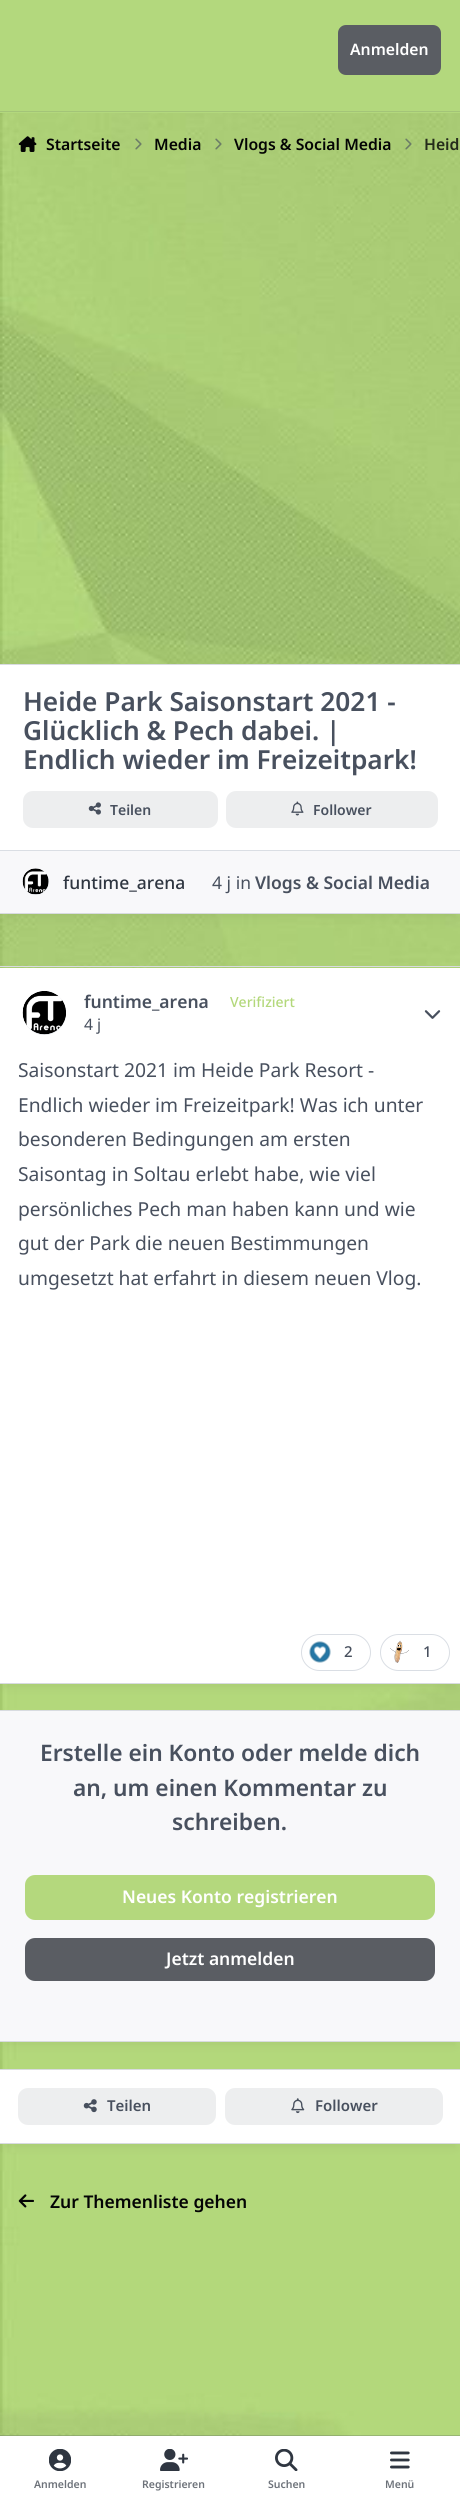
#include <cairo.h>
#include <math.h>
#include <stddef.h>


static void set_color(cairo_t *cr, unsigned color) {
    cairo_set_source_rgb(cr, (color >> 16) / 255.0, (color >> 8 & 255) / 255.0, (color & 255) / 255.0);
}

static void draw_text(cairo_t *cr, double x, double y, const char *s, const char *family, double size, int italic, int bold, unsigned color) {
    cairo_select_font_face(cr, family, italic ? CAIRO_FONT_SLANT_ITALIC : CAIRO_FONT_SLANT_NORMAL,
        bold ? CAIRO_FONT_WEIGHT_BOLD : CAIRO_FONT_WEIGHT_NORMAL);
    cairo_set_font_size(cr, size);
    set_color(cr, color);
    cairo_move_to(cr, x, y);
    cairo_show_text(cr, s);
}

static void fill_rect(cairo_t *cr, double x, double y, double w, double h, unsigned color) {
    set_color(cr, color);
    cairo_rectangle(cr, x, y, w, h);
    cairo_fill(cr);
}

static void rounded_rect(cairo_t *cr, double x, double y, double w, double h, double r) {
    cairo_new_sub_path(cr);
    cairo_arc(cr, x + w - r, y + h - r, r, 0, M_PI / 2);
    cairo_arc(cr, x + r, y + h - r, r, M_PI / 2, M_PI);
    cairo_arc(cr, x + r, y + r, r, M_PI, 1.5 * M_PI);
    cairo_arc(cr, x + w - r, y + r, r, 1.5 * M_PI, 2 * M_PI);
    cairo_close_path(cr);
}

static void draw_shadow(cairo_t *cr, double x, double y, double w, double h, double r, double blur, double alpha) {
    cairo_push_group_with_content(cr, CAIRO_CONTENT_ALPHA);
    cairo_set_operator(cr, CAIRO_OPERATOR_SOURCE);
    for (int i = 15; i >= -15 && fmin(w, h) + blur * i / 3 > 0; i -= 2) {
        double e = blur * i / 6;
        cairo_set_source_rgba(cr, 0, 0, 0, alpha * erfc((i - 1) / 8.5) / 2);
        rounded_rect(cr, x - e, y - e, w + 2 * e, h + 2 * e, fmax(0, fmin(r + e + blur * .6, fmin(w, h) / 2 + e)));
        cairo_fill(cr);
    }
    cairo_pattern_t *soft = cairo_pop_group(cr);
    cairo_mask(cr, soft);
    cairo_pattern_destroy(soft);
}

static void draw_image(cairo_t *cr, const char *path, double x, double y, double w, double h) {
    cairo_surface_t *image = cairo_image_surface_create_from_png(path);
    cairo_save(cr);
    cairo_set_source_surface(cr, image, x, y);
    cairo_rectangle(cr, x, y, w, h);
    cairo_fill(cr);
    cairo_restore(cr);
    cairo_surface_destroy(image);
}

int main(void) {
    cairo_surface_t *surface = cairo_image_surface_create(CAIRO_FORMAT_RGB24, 460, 2505);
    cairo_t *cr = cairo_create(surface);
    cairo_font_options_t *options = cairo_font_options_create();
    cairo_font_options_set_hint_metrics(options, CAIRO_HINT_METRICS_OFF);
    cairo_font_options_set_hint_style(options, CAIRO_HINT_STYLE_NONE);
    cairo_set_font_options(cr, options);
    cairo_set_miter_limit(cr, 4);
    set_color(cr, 0xFFFFFF);
    cairo_paint(cr);
    draw_image(cr, "assets/img1.png", 0, 113, 460, 2323);
    fill_rect(cr, 0, 0, 460, 113, 0xB3D87D);
    fill_rect(cr, 0, 111, 460, 1, 0xA3C478);
    set_color(cr, 0x5A5D63);
    rounded_rect(cr, 338, 25, 103, 50, 8);
    cairo_fill(cr);
    draw_text(cr, 350, 55, "Anmelden", "Noto Sans SemiBold", 15.75, 0, 0, 0xFFFFFF);
    draw_image(cr, "assets/img2.png", 18, 136, 19, 16);
    draw_text(cr, 46, 150, "Startseite", "Noto Sans SemiBold", 15.75, 0, 0, 0x030304);
    draw_image(cr, "assets/img3.png", 135, 138, 7, 12);
    draw_text(cr, 154, 150, "Media", "Noto Sans SemiBold", 15.75, 0, 0, 0x030304);
    draw_image(cr, "assets/img4.png", 215, 138, 7, 12);
    draw_text(cr, 234, 150, "Vlogs & Social Media", "Noto Sans SemiBold", 15.75, 0, 0, 0x030304);
    draw_image(cr, "assets/img5.png", 405, 138, 7, 12);
    draw_text(cr, 424, 150, "Heid", "Noto Sans SemiBold", 15.75, 0, 0, 0x242B1A);
    set_color(cr, 0x020306);
    draw_shadow(cr, 4, 675, 452, 243, 0, 4.5, 0.05);
    fill_rect(cr, 0, 665, 460, 185, 0xFFFFFF);
    fill_rect(cr, 0, 664, 460, 1, 0xD8DBE0);
    fill_rect(cr, 0, 913, 460, 1, 0xD8DBE0);
    draw_text(cr, 23, 711, "Heide Park Saisonstart 2021 -", "Noto Sans SemiBold", 26.25, 0, 0, 0x48505E);
    draw_text(cr, 23, 740, "Glücklich & Pech dabei. |", "Noto Sans SemiBold", 26.25, 0, 0, 0x48505E);
    draw_text(cr, 23, 769, "Endlich wieder im Freizeitpark!", "Noto Sans SemiBold", 26.25, 0, 0, 0x48505E);
    set_color(cr, 0xEDEEEF);
    rounded_rect(cr, 23, 791, 195, 37, 10);
    cairo_fill(cr);
    draw_image(cr, "assets/img6.png", 88, 802, 13, 13);
    draw_text(cr, 110, 815, "Teilen", "Noto Sans SemiBold", 14, 0, 0, 0x48505E);
    set_color(cr, 0xEDEEEF);
    rounded_rect(cr, 226, 791, 212, 37, 10);
    cairo_fill(cr);
    draw_image(cr, "assets/img7.png", 291, 801, 13, 15);
    draw_text(cr, 313, 815, "Follower", "Noto Sans SemiBold", 14, 0, 0, 0x48505E);
    fill_rect(cr, 0, 851, 460, 62, 0xF8F8FA);
    fill_rect(cr, 0, 850, 460, 1, 0xDADEE4);
    set_color(cr, 0xE7EAEE);
    cairo_new_path(cr);
    cairo_arc(cr, 36, 882, 13, 0, 2 * M_PI);
    cairo_fill(cr);
    draw_image(cr, "assets/img8.png", 22, 868, 27, 27);
    draw_text(cr, 63, 889, "funtime_arena", "Noto Sans Medium", 17.5, 0, 0, 0x2F3641);
    draw_text(cr, 212, 889, "4 j in", "Noto Sans", 17.5, 0, 0, 0x48505E);
    draw_text(cr, 255, 889, "Vlogs & Social Media", "Noto Sans SemiBold", 17.5, 0, 0, 0x48505E);
    set_color(cr, 0x020306);
    draw_shadow(cr, 4, 978, 452, 710, 0, 4.5, 0.05);
    fill_rect(cr, 0, 968, 460, 715, 0xFFFFFF);
    fill_rect(cr, 0, 966, 460, 1, 0xD8DBE0);
    fill_rect(cr, 0, 1683, 460, 1, 0xD8DBE0);
    set_color(cr, 0xE7EAEE);
    rounded_rect(cr, 23, 991, 43, 44, 21.5);
    cairo_fill(cr);
    draw_image(cr, "assets/img9.png", 22, 991, 44, 44);
    draw_text(cr, 84, 1008, "funtime_arena", "Noto Sans SemiBold", 17.5, 0, 0, 0x48505E);
    draw_text(cr, 230, 1007, "Verifiziert", "Noto Sans Medium", 14, 0, 0, 0xB3D87B);
    draw_text(cr, 84, 1030, "4 j", "Noto Sans", 15.75, 0, 0, 0x48505E);
    draw_image(cr, "assets/img10.png", 424, 1010, 17, 9);
    draw_text(cr, 18, 1077, "Saisonstart 2021 im Heide Park Resort -", "Noto Sans", 19.25, 0, 0, 0x48505E);
    draw_text(cr, 18, 1112, "Endlich wieder im Freizeitpark! Was ich unter", "Noto Sans", 19.25, 0, 0, 0x48505E);
    draw_text(cr, 18, 1146, "besonderen Bedingungen am ersten", "Noto Sans", 19.25, 0, 0, 0x48505E);
    draw_text(cr, 18, 1181, "Saisontag in Soltau erlebt habe, wie viel", "Noto Sans", 19.25, 0, 0, 0x48505E);
    draw_text(cr, 18, 1216, "persönliches Pech man haben kann und wie", "Noto Sans", 19.25, 0, 0, 0x48505E);
    draw_text(cr, 18, 1250, "gut der Park die neuen Bestimmungen", "Noto Sans", 19.25, 0, 0, 0x48505E);
    draw_text(cr, 18, 1285, "umgesetzt hat erfahrt in diesem neuen Vlog.", "Noto Sans", 19.25, 0, 0, 0x48505E);
    rounded_rect(cr, 301.5, 1634.5, 69, 36, 18);
    set_color(cr, 0xDADEE4);
    cairo_set_line_width(cr, 1);
    cairo_stroke(cr);
    draw_image(cr, "assets/img11.png", 309, 1641, 22, 22);
    draw_text(cr, 344, 1657, "2", "Noto Sans Medium", 15, 0, 0, 0x48505E);
    rounded_rect(cr, 380.5, 1634.5, 69, 36, 18);
    set_color(cr, 0xDADEE4);
    cairo_stroke(cr);
    draw_image(cr, "assets/img12.png", 390, 1640, 19, 23);
    draw_text(cr, 423, 1657, "1", "Noto Sans Medium", 15, 0, 0, 0x48505E);
    set_color(cr, 0x020306);
    draw_shadow(cr, 4, 1721, 452, 325, 0, 4.5, 0.05);
    fill_rect(cr, 0, 1711, 460, 330, 0xF8F8FA);
    fill_rect(cr, 0, 1710, 460, 1, 0xD8DBE0);
    fill_rect(cr, 0, 2041, 460, 1, 0xD8DBE0);
    draw_text(cr, 40, 1761, "Erstelle ein Konto oder melde dich", "Noto Sans SemiBold", 22.75, 0, 0, 0x48505E);
    draw_text(cr, 73, 1796, "an, um einen Kommentar zu", "Noto Sans SemiBold", 22.75, 0, 0, 0x48505E);
    draw_text(cr, 172, 1830, "schreiben.", "Noto Sans SemiBold", 22.75, 0, 0, 0x48505E);
    set_color(cr, 0xB4D87D);
    rounded_rect(cr, 25, 1875, 410, 45, 10);
    cairo_fill(cr);
    draw_text(cr, 122, 1903, "Neues Konto registrieren", "Noto Sans SemiBold", 17.5, 0, 0, 0xFFFFFF);
    set_color(cr, 0x5A5D63);
    rounded_rect(cr, 25, 1938, 410, 43, 10);
    cairo_fill(cr);
    draw_text(cr, 166, 1965, "Jetzt anmelden", "Noto Sans SemiBold", 17.5, 0, 0, 0xFFFFFF);
    set_color(cr, 0x020306);
    draw_shadow(cr, 4, 2080, 452, 68, 0, 4.5, 0.05);
    fill_rect(cr, 0, 2070, 460, 73, 0xFFFFFF);
    fill_rect(cr, 0, 2069, 460, 1, 0xD8DBE0);
    fill_rect(cr, 0, 2143, 460, 1, 0xD8DBE0);
    set_color(cr, 0xEDEEEF);
    rounded_rect(cr, 18, 2088, 198, 37, 10);
    cairo_fill(cr);
    draw_image(cr, "assets/img13.png", 83, 2099, 14, 14);
    draw_text(cr, 107, 2111, "Teilen", "Noto Sans SemiBold", 15, 0, 0, 0x48505E);
    set_color(cr, 0xEDEEEF);
    rounded_rect(cr, 225, 2088, 218, 37, 10);
    cairo_fill(cr);
    draw_image(cr, "assets/img14.png", 291, 2098, 14, 16);
    draw_text(cr, 315, 2111, "Follower", "Noto Sans SemiBold", 15, 0, 0, 0x48505E);
    draw_image(cr, "assets/img15.png", 18, 2194, 16, 14);
    draw_text(cr, 50, 2208, "Zur Themenliste gehen", "Noto Sans SemiBold", 17.5, 0, 0, 0x030304);
    cairo_set_source_rgba(cr, 0.282, 0.314, 0.369, 0.25);
    cairo_rectangle(cr, 0, 2435, 460, 1);
    cairo_fill(cr);
    draw_image(cr, "assets/img16.png", 49, 2449, 22, 22);
    draw_text(cr, 34, 2488, "Anmelden", "Noto Sans SemiBold", 10.5, 0, 0, 0x6D727A);
    draw_image(cr, "assets/img17.png", 160, 2449, 28, 22);
    draw_text(cr, 142, 2488, "Registrieren", "Noto Sans SemiBold", 10.5, 0, 0, 0x6D727A);
    draw_image(cr, "assets/img18.png", 275, 2449, 23, 22);
    draw_text(cr, 268, 2488, "Suchen", "Noto Sans SemiBold", 10.5, 0, 0, 0x6D727A);
    draw_image(cr, "assets/img19.png", 390, 2451, 20, 18);
    draw_text(cr, 385, 2488, "Menü", "Noto Sans SemiBold", 10.5, 0, 0, 0x6D727A);
    cairo_surface_write_to_png(surface, "output.png");
    cairo_font_options_destroy(options);
    cairo_destroy(cr);
    cairo_surface_destroy(surface);
    return 0;
}
